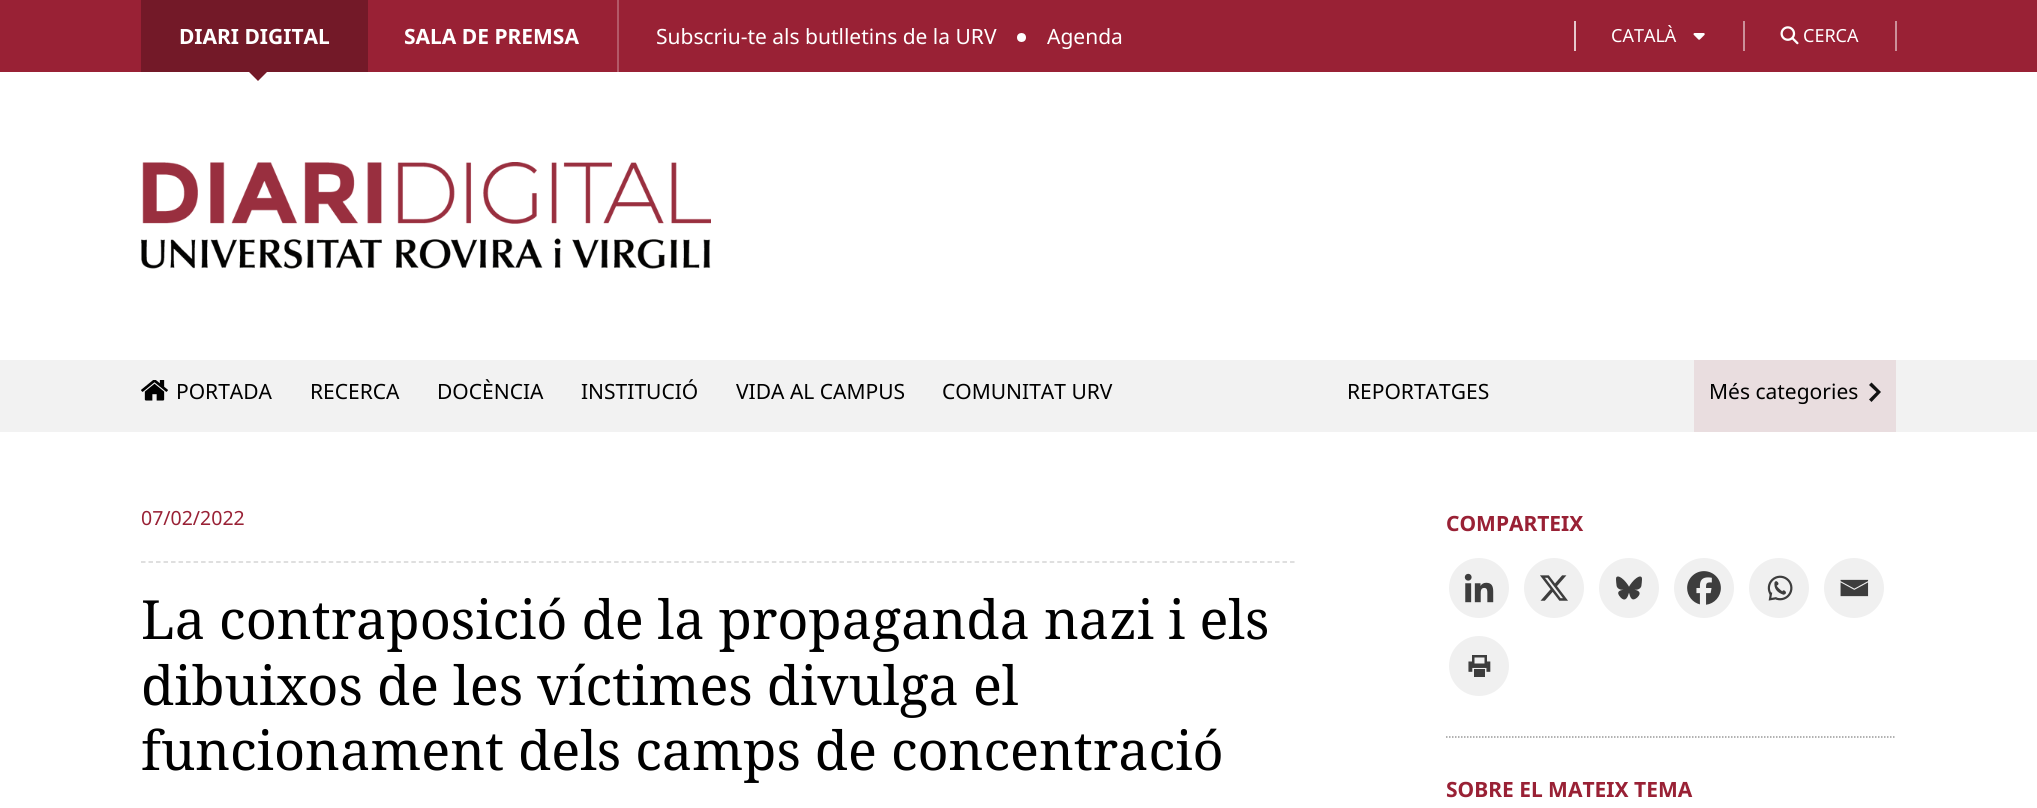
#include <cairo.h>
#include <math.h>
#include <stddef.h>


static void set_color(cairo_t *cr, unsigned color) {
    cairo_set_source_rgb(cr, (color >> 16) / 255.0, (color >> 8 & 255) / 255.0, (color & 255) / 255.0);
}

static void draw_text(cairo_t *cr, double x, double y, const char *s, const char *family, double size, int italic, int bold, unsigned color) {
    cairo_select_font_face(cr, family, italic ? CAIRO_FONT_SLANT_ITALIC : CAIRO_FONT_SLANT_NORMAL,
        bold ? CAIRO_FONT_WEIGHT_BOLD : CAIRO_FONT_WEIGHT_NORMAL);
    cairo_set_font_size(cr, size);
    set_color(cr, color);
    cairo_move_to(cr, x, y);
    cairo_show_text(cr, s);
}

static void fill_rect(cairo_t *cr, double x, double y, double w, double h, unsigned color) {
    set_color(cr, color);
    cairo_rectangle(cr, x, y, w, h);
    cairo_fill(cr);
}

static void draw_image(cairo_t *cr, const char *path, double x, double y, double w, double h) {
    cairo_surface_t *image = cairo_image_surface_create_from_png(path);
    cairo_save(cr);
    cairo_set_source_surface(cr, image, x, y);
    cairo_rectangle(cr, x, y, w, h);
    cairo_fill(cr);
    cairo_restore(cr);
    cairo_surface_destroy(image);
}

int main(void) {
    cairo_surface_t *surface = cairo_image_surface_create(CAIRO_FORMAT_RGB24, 2037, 808);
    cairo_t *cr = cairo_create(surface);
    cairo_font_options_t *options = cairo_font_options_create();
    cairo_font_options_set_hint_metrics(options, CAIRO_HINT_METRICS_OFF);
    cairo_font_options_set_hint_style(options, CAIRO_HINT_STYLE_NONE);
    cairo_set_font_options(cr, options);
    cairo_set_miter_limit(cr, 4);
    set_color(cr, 0xFFFFFF);
    cairo_paint(cr);
    fill_rect(cr, 0, 0, 2037, 72, 0x992135);
    fill_rect(cr, 141, 0, 227, 72, 0x731928);
    draw_text(cr, 179, 44, "DIARI DIGITAL", "Noto Sans", 21, 0, 1, 0xFFFFFF);
    set_color(cr, 0x731928);
    cairo_new_path(cr);
    cairo_move_to(cr, 249, 72);
    cairo_line_to(cr, 267, 72);
    cairo_line_to(cr, 258, 81);
    cairo_close_path(cr);
    cairo_fill(cr);
    draw_text(cr, 404, 44, "SALA DE PREMSA", "Noto Sans", 21, 0, 1, 0xFFFFFF);
    fill_rect(cr, 617, 0, 2, 72, 0xB35968);
    draw_text(cr, 656, 44, "Subscriu-te als butlletins de la URV", "Noto Sans", 21, 0, 0, 0xFFFFFF);
    cairo_new_path(cr);
    cairo_arc(cr, 1021.5, 37.5, 4.5, 0, 2 * M_PI);
    cairo_fill(cr);
    draw_text(cr, 1047, 44, "Agenda", "Noto Sans", 21, 0, 0, 0xFFFFFF);
    fill_rect(cr, 1574, 21, 2, 30, 0xE6C8CD);
    draw_text(cr, 1611, 42, "CATALÀ", "Noto Sans", 18, 0, 0, 0xFFFFFF);
    draw_image(cr, "assets/img1.png", 1693, 33, 12, 7);
    fill_rect(cr, 1743, 21, 2, 30, 0xCC909A);
    draw_image(cr, "assets/img2.png", 1780, 26, 19, 19);
    draw_text(cr, 1803, 42, "CERCA", "Noto Sans", 18, 0, 0, 0xFFFFFF);
    fill_rect(cr, 1895, 21, 2, 30, 0xCC909A);
    draw_image(cr, "assets/img3.png", 141, 162, 570, 107);
    fill_rect(cr, 0, 360, 2037, 72, 0xF2F2F2);
    draw_image(cr, "assets/img4.png", 141, 380, 27, 21);
    draw_text(cr, 176, 399, "PORTADA", "Noto Sans", 21, 0, 0, 0x000000);
    draw_text(cr, 310, 399, "RECERCA", "Noto Sans", 21, 0, 0, 0x000000);
    draw_text(cr, 437, 399, "DOCÈNCIA", "Noto Sans", 21, 0, 0, 0x000000);
    draw_text(cr, 581, 399, "INSTITUCIÓ", "Noto Sans", 21, 0, 0, 0x000000);
    draw_text(cr, 736, 399, "VIDA AL CAMPUS", "Noto Sans", 21, 0, 0, 0x000000);
    draw_text(cr, 942, 399, "COMUNITAT URV", "Noto Sans", 21, 0, 0, 0x000000);
    draw_text(cr, 1347, 399, "REPORTATGES", "Noto Sans", 21, 0, 0, 0x000000);
    fill_rect(cr, 1694, 360, 202, 72, 0xE9DDDF);
    draw_text(cr, 1709, 399, "Més categories", "Noto Sans", 21, 0, 0, 0x000000);
    set_color(cr, 0x121212);
    cairo_new_path(cr);
    cairo_move_to(cr, 1869, 399.5);
    cairo_line_to(cr, 1876.5, 392);
    cairo_line_to(cr, 1869, 385);
    cairo_line_to(cr, 1871.5, 382.5);
    cairo_line_to(cr, 1881, 392);
    cairo_line_to(cr, 1871.5, 402);
    cairo_close_path(cr);
    cairo_fill(cr);
    cairo_new_path(cr);
    cairo_move_to(cr, 141, 562);
    cairo_line_to(cr, 1296, 562);
    set_color(cr, 0xD4D4D4);
    cairo_set_line_width(cr, 1.5);
    cairo_set_dash(cr, (double[]){4.5, 3.01}, 2, 0);
    cairo_stroke(cr);
    draw_text(cr, 141, 525, "07/02/2022", "Noto Sans", 19.5, 0, 0, 0x992135);
    draw_text(cr, 141, 639, "La contraposició de la propaganda nazi i els", "Noto Serif", 54, 0, 0, 0x000000);
    draw_text(cr, 141, 705, "dibuixos de les víctimes divulga el", "Noto Serif", 54, 0, 0, 0x000000);
    draw_text(cr, 141, 770, "funcionament dels camps de concentració", "Noto Serif", 54, 0, 0, 0x000000);
    cairo_new_path(cr);
    cairo_move_to(cr, 1446, 737);
    cairo_line_to(cr, 1896, 737);
    set_color(cr, 0x999999);
    cairo_set_dash(cr, (double[]){1.5, 1.5}, 2, 0);
    cairo_stroke(cr);
    draw_text(cr, 1446, 531, "COMPARTEIX", "Noto Sans", 21, 0, 1, 0x992135);
    set_color(cr, 0xF0F0F0);
    cairo_new_path(cr);
    cairo_arc(cr, 1479, 588, 30, 0, 2 * M_PI);
    cairo_fill(cr);
    draw_image(cr, "assets/img5.png", 1464, 573, 30, 30);
    cairo_arc(cr, 1554, 588, 30, 0, 2 * M_PI);
    cairo_fill(cr);
    draw_image(cr, "assets/img6.png", 1540, 575, 28, 26);
    cairo_arc(cr, 1629, 588, 30, 0, 2 * M_PI);
    cairo_fill(cr);
    draw_image(cr, "assets/img7.png", 1616, 576, 26, 24);
    cairo_arc(cr, 1704, 588, 30, 0, 2 * M_PI);
    cairo_fill(cr);
    draw_image(cr, "assets/img8.png", 1687, 571, 34, 34);
    cairo_arc(cr, 1779, 588, 30, 0, 2 * M_PI);
    cairo_fill(cr);
    draw_image(cr, "assets/img9.png", 1767, 575, 26, 26);
    cairo_arc(cr, 1854, 588, 30, 0, 2 * M_PI);
    cairo_fill(cr);
    draw_image(cr, "assets/img10.png", 1840, 579, 29, 18);
    cairo_arc(cr, 1479, 666, 30, 0, 2 * M_PI);
    cairo_fill(cr);
    draw_image(cr, "assets/img11.png", 1468, 655, 23, 22);
    draw_text(cr, 1446, 797, "SOBRE EL MATEIX TEMA", "Noto Sans", 21, 0, 1, 0x992135);
    cairo_surface_write_to_png(surface, "output.png");
    cairo_font_options_destroy(options);
    cairo_destroy(cr);
    cairo_surface_destroy(surface);
    return 0;
}
